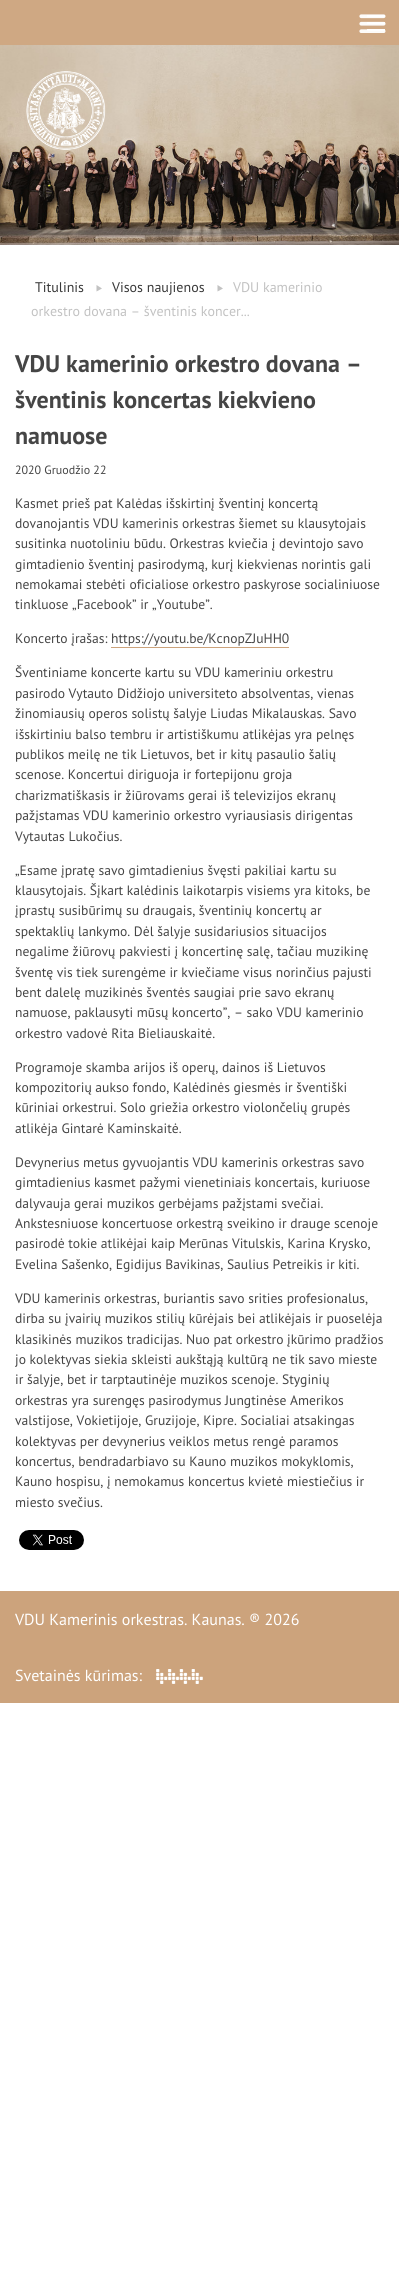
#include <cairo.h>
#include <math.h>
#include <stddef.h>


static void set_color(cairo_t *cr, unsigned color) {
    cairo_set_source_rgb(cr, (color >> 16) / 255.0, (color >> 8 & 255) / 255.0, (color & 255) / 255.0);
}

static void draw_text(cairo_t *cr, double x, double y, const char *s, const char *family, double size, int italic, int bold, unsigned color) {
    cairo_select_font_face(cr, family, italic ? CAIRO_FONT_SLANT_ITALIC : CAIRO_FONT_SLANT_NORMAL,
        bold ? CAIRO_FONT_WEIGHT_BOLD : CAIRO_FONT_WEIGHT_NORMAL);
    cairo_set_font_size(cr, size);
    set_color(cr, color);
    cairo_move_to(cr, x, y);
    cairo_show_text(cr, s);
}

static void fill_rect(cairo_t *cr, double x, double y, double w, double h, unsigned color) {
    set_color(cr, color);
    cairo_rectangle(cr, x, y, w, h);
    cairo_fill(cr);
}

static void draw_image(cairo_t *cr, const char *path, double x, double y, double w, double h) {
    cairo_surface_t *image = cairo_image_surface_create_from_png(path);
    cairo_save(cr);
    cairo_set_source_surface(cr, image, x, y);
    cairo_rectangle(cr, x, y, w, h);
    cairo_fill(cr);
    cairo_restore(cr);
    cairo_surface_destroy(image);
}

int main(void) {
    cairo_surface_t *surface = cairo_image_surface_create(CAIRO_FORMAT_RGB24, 399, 2281);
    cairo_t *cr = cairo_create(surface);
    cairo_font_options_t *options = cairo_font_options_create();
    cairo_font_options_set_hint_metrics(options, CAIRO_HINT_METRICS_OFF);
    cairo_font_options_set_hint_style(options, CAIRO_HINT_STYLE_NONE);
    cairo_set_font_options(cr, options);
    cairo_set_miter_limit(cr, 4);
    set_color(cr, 0xFFFFFF);
    cairo_paint(cr);
    fill_rect(cr, 0, 0, 399, 45, 0xCFA883);
    draw_image(cr, "assets/img1.png", 359, 14, 27, 19);
    fill_rect(cr, 367, 29, 18, 2, 0xFFFFFF);
    fill_rect(cr, 367, 22, 18, 2, 0xFFFFFF);
    fill_rect(cr, 367, 15, 18, 2, 0xFFFFFF);
    draw_image(cr, "assets/img2.png", 0, 45, 399, 200);
    draw_image(cr, "assets/img3.png", 26, 71, 80, 79);
    draw_text(cr, 35, 292, "Titulinis", "PT Sans", 14, 0, 0, 0x383838);
    draw_text(cr, 112, 292, "Visos naujienos", "PT Sans", 14, 0, 0, 0x383838);
    set_color(cr, 0xC2C2C2);
    cairo_new_path(cr);
    cairo_move_to(cr, 96.5, 285);
    cairo_line_to(cr, 102, 288.5);
    cairo_line_to(cr, 96.5, 291.5);
    cairo_close_path(cr);
    cairo_fill(cr);
    draw_text(cr, 233, 292, "VDU kamerinio", "PT Sans", 14, 0, 0, 0xC2C2C2);
    cairo_new_path(cr);
    cairo_move_to(cr, 217.5, 285);
    cairo_line_to(cr, 223, 288.5);
    cairo_line_to(cr, 217.5, 291.5);
    cairo_close_path(cr);
    cairo_fill(cr);
    draw_text(cr, 31, 316, "orkestro dovana – šventinis koncer...", "PT Sans", 14, 0, 0, 0xC2C2C2);
    draw_text(cr, 15, 372, "VDU kamerinio orkestro dovana –", "PT Sans", 24, 0, 1, 0x454545);
    draw_text(cr, 15, 408, "šventinis koncertas kiekvieno", "PT Sans", 24, 0, 1, 0x454545);
    draw_text(cr, 15, 444, "namuose", "PT Sans", 24, 0, 1, 0x454545);
    draw_text(cr, 15, 474, "2020 Gruodžio 22", "PT Sans", 12, 0, 0, 0x454545);
    draw_text(cr, 15, 508, "Kasmet prieš pat Kalėdas išskirtinį šventinį koncertą", "PT Sans", 13.6, 0, 0, 0x454545);
    draw_text(cr, 15, 528, "dovanojantis VDU kamerinis orkestras šiemet su klausytojais", "PT Sans", 13.6, 0, 0, 0x454545);
    draw_text(cr, 15, 548, "susitinka nuotoliniu būdu. Orkestras kviečia į devintojo savo", "PT Sans", 13.6, 0, 0, 0x454545);
    draw_text(cr, 15, 569, "gimtadienio šventinį pasirodymą, kurį kiekvienas norintis gali", "PT Sans", 13.6, 0, 0, 0x454545);
    draw_text(cr, 15, 589, "nemokamai stebėti oficialiose orkestro paskyrose socialiniuose", "PT Sans", 13.6, 0, 0, 0x454545);
    draw_text(cr, 15, 609, "tinkluose „Facebook” ir „Youtube”.", "PT Sans", 13.6, 0, 0, 0x454545);
    draw_text(cr, 15, 643, "Koncerto įrašas: https://youtu.be/KcnopZJuHH0", "PT Sans", 13.6, 0, 0, 0x454545);
    fill_rect(cr, 111, 647, 178, 1, 0xCCA37C);
    draw_text(cr, 15, 677, "Šventiniame koncerte kartu su VDU kameriniu orkestru", "PT Sans", 13.6, 0, 0, 0x454545);
    draw_text(cr, 15, 698, "pasirodo Vytauto Didžiojo universiteto absolventas, vienas", "PT Sans", 13.6, 0, 0, 0x454545);
    draw_text(cr, 15, 718, "žinomiausių operos solistų šalyje Liudas Mikalauskas. Savo", "PT Sans", 13.6, 0, 0, 0x454545);
    draw_text(cr, 15, 739, "išskirtiniu balso tembru ir artistiškumu atlikėjas yra pelnęs", "PT Sans", 13.6, 0, 0, 0x454545);
    draw_text(cr, 15, 759, "publikos meilę ne tik Lietuvos, bet ir kitų pasaulio šalių", "PT Sans", 13.6, 0, 0, 0x454545);
    draw_text(cr, 15, 779, "scenose. Koncertui diriguoja ir fortepijonu groja", "PT Sans", 13.6, 0, 0, 0x454545);
    draw_text(cr, 15, 800, "charizmatiškasis ir žiūrovams gerai iš televizijos ekranų", "PT Sans", 13.6, 0, 0, 0x454545);
    draw_text(cr, 15, 820, "pažįstamas VDU kamerinio orkestro vyriausiasis dirigentas", "PT Sans", 13.6, 0, 0, 0x454545);
    draw_text(cr, 15, 841, "Vytautas Lukočius.", "PT Sans", 13.6, 0, 0, 0x454545);
    draw_text(cr, 15, 875, "„Esame įpratę savo gimtadienius švęsti pakiliai kartu su", "PT Sans", 13.6, 0, 0, 0x454545);
    draw_text(cr, 15, 895, "klausytojais. Šįkart kalėdinis laikotarpis visiems yra kitoks, be", "PT Sans", 13.6, 0, 0, 0x454545);
    draw_text(cr, 15, 915, "įprastų susibūrimų su draugais, šventinių koncertų ar", "PT Sans", 13.6, 0, 0, 0x454545);
    draw_text(cr, 15, 936, "spektaklių lankymo. Dėl šalyje susidariusios situacijos", "PT Sans", 13.6, 0, 0, 0x454545);
    draw_text(cr, 15, 956, "negalime žiūrovų pakviesti į koncertinę salę, tačiau muzikinę", "PT Sans", 13.6, 0, 0, 0x454545);
    draw_text(cr, 15, 977, "šventę vis tiek surengėme ir kviečiame visus norinčius pajusti", "PT Sans", 13.6, 0, 0, 0x454545);
    draw_text(cr, 15, 997, "bent dalelę muzikinės šventės saugiai prie savo ekranų", "PT Sans", 13.6, 0, 0, 0x454545);
    draw_text(cr, 15, 1017, "namuose, paklausyti mūsų koncerto”, – sako VDU kamerinio", "PT Sans", 13.6, 0, 0, 0x454545);
    draw_text(cr, 15, 1038, "orkestro vadovė Rita Bieliauskaitė.", "PT Sans", 13.6, 0, 0, 0x454545);
    draw_text(cr, 15, 1072, "Programoje skamba arijos iš operų, dainos iš Lietuvos", "PT Sans", 13.6, 0, 0, 0x454545);
    draw_text(cr, 15, 1092, "kompozitorių aukso fondo, Kalėdinės giesmės ir šventiški", "PT Sans", 13.6, 0, 0, 0x454545);
    draw_text(cr, 15, 1112, "kūriniai orkestrui. Solo griežia orkestro violončelių grupės", "PT Sans", 13.6, 0, 0, 0x454545);
    draw_text(cr, 15, 1133, "atlikėja Gintarė Kaminskaitė.", "PT Sans", 13.6, 0, 0, 0x454545);
    draw_text(cr, 15, 1167, "Devynerius metus gyvuojantis VDU kamerinis orkestras savo", "PT Sans", 13.6, 0, 0, 0x454545);
    draw_text(cr, 15, 1187, "gimtadienius kasmet pažymi vienetiniais koncertais, kuriuose", "PT Sans", 13.6, 0, 0, 0x454545);
    draw_text(cr, 15, 1208, "dalyvauja gerai muzikos gerbėjams pažįstami svečiai.", "PT Sans", 13.6, 0, 0, 0x454545);
    draw_text(cr, 15, 1228, "Ankstesniuose koncertuose orkestrą sveikino ir drauge scenoje", "PT Sans", 13.6, 0, 0, 0x454545);
    draw_text(cr, 15, 1248, "pasirodė tokie atlikėjai kaip Merūnas Vitulskis, Karina Krysko,", "PT Sans", 13.6, 0, 0, 0x454545);
    draw_text(cr, 15, 1269, "Evelina Sašenko, Egidijus Bavikinas, Saulius Petreikis ir kiti.", "PT Sans", 13.6, 0, 0, 0x454545);
    draw_text(cr, 15, 1303, "VDU kamerinis orkestras, buriantis savo srities profesionalus,", "PT Sans", 13.6, 0, 0, 0x454545);
    draw_text(cr, 15, 1323, "dirba su įvairių muzikos stilių kūrėjais bei atlikėjais ir puoselėja", "PT Sans", 13.6, 0, 0, 0x454545);
    draw_text(cr, 15, 1344, "klasikinės muzikos tradicijas. Nuo pat orkestro įkūrimo pradžios", "PT Sans", 13.6, 0, 0, 0x454545);
    draw_text(cr, 15, 1364, "jo kolektyvas siekia skleisti aukštąją kultūrą ne tik savo mieste", "PT Sans", 13.6, 0, 0, 0x454545);
    draw_text(cr, 15, 1384, "ir šalyje, bet ir tarptautinėje muzikos scenoje. Styginių", "PT Sans", 13.6, 0, 0, 0x454545);
    draw_text(cr, 15, 1405, "orkestras yra surengęs pasirodymus Jungtinėse Amerikos", "PT Sans", 13.6, 0, 0, 0x454545);
    draw_text(cr, 15, 1425, "valstijose, Vokietijoje, Gruzijoje, Kipre. Socialiai atsakingas", "PT Sans", 13.6, 0, 0, 0x454545);
    draw_text(cr, 15, 1446, "kolektyvas per devynerius veiklos metus rengė paramos", "PT Sans", 13.6, 0, 0, 0x454545);
    draw_text(cr, 15, 1466, "koncertus, bendradarbiavo su Kauno muzikos mokyklomis,", "PT Sans", 13.6, 0, 0, 0x454545);
    draw_text(cr, 15, 1486, "Kauno hospisu, į nemokamus koncertus kvietė miestiečius ir", "PT Sans", 13.6, 0, 0, 0x454545);
    draw_text(cr, 15, 1507, "miesto svečius.", "PT Sans", 13.6, 0, 0, 0x454545);
    draw_image(cr, "assets/img4.png", 19, 1530, 65, 20);
    fill_rect(cr, 0, 1591, 399, 112, 0xCCA37C);
    draw_text(cr, 15, 1625, "VDU Kamerinis orkestras. Kaunas. ® 2026", "PT Sans", 16, 0, 0, 0xFFFFFF);
    draw_text(cr, 15, 1681, "Svetainės kūrimas:", "PT Sans", 16, 0, 0, 0xFFFFFF);
    draw_image(cr, "assets/img5.png", 156, 1669, 47, 15);
    cairo_surface_write_to_png(surface, "output.png");
    cairo_font_options_destroy(options);
    cairo_destroy(cr);
    cairo_surface_destroy(surface);
    return 0;
}
